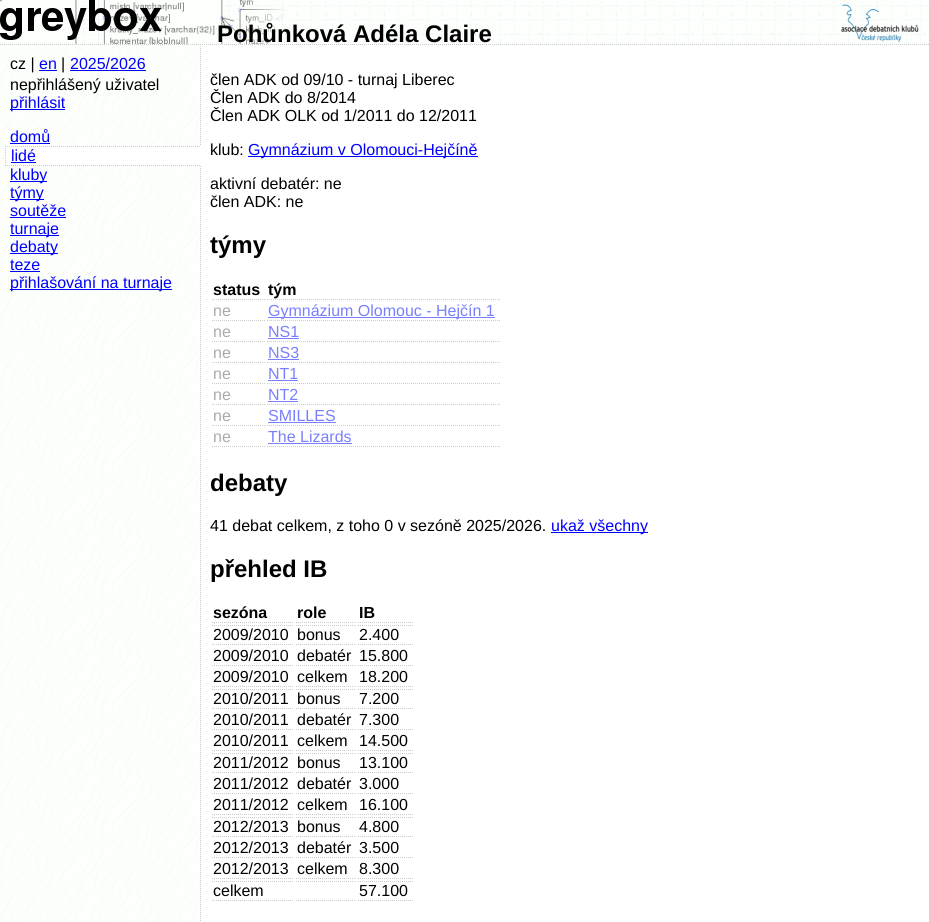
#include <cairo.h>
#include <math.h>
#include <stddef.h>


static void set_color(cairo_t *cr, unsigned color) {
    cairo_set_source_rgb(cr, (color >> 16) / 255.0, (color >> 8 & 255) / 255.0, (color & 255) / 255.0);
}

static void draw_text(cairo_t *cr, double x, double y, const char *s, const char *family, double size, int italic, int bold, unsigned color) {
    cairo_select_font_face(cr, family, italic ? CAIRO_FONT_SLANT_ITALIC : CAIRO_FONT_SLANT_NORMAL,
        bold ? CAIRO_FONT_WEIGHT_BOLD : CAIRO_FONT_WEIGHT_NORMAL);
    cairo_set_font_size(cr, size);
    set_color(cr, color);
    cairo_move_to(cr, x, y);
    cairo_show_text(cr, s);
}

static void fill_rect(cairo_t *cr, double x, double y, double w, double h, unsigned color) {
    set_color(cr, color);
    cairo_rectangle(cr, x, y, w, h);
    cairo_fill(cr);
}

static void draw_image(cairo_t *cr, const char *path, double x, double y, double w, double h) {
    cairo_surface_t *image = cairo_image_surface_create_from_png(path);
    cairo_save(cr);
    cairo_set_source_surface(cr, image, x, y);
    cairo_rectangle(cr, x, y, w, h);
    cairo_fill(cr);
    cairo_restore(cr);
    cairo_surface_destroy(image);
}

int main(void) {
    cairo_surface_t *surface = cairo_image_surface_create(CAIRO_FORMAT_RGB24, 929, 922);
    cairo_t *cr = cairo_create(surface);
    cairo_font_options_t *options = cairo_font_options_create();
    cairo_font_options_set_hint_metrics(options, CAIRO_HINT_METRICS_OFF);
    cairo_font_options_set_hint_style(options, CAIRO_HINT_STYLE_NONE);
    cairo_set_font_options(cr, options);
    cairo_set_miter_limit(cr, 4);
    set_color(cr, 0xFFFFFF);
    cairo_paint(cr);
    draw_image(cr, "assets/img1.png", 0, 45, 201, 877);
    fill_rect(cr, 1, 0, 928, 45, 0xFDFFFC);
    draw_image(cr, "assets/img2.png", 244, 1, 685, 43);
    cairo_new_path(cr);
    cairo_move_to(cr, 0, 44.5);
    cairo_line_to(cr, 929, 44.5);
    set_color(cr, 0xCBCDCA);
    cairo_set_line_width(cr, 1);
    cairo_set_dash(cr, (double[]){1, 1}, 2, 0);
    cairo_stroke(cr);
    draw_image(cr, "assets/img3.png", 0, 0, 286, 44);
    draw_text(cr, 217, 42, "Pohůnková Adéla Claire", "Liberation Sans", 24, 0, 1, 0x000000);
    draw_image(cr, "assets/img4.png", 841, 4, 78, 38);
    draw_text(cr, 10, 69, "cz |", "Liberation Sans", 16, 0, 0, 0x000000);
    draw_text(cr, 39, 69, "en", "Liberation Sans", 16, 0, 0, 0x0000FF);
    fill_rect(cr, 39, 70, 18, 1, 0x0000FF);
    draw_text(cr, 61, 69, "|", "Liberation Sans", 16, 0, 0, 0x000000);
    draw_text(cr, 70, 69, "2025/2026", "Liberation Sans", 16, 0, 0, 0x0000FF);
    fill_rect(cr, 70, 70, 76, 1, 0x0000FF);
    draw_text(cr, 10, 90, "nepřihlášený uživatel", "Liberation Sans", 16, 0, 0, 0x000000);
    fill_rect(cr, 10, 109, 55, 1, 0x0000FF);
    draw_text(cr, 10, 108, "přihlásit", "Liberation Sans", 16, 0, 0, 0x0000FF);
    draw_text(cr, 10, 142, "domů", "Liberation Sans", 16, 0, 0, 0x0000FF);
    fill_rect(cr, 10, 143, 40, 1, 0x0000FF);
    fill_rect(cr, 5, 146, 196, 20, 0xFFFFFF);
    cairo_new_path(cr);
    cairo_move_to(cr, 5, 146.5);
    cairo_line_to(cr, 201, 146.5);
    set_color(cr, 0xCBCDCA);
    cairo_stroke(cr);
    cairo_new_path(cr);
    cairo_move_to(cr, 5, 165.5);
    cairo_line_to(cr, 201, 165.5);
    cairo_stroke(cr);
    cairo_new_path(cr);
    cairo_move_to(cr, 5.5, 146);
    cairo_line_to(cr, 5.5, 166);
    cairo_stroke(cr);
    draw_text(cr, 11, 161, "lidé", "Liberation Sans", 16, 0, 0, 0x0000FF);
    fill_rect(cr, 11, 162, 25, 1, 0x0000FF);
    fill_rect(cr, 10, 181, 37, 1, 0x0000FF);
    draw_text(cr, 10, 180, "kluby", "Liberation Sans", 16, 0, 0, 0x0000FF);
    fill_rect(cr, 10, 199, 34, 1, 0x0000FF);
    draw_text(cr, 10, 198, "týmy", "Liberation Sans", 16, 0, 0, 0x0000FF);
    draw_text(cr, 10, 216, "soutěže", "Liberation Sans", 16, 0, 0, 0x0000FF);
    fill_rect(cr, 10, 217, 56, 1, 0x0000FF);
    fill_rect(cr, 10, 235, 49, 1, 0x0000FF);
    draw_text(cr, 10, 234, "turnaje", "Liberation Sans", 16, 0, 0, 0x0000FF);
    fill_rect(cr, 10, 253, 48, 1, 0x0000FF);
    draw_text(cr, 10, 252, "debaty", "Liberation Sans", 16, 0, 0, 0x0000FF);
    draw_text(cr, 10, 270, "teze", "Liberation Sans", 16, 0, 0, 0x0000FF);
    fill_rect(cr, 10, 271, 30, 1, 0x0000FF);
    fill_rect(cr, 10, 289, 162, 1, 0x0000FF);
    draw_text(cr, 10, 288, "přihlašování na turnaje", "Liberation Sans", 16, 0, 0, 0x0000FF);
    draw_text(cr, 210, 85, "člen ADK od 09/10 - turnaj Liberec", "Liberation Sans", 16, 0, 0, 0x000000);
    draw_text(cr, 210, 103, "Člen ADK do 8/2014", "Liberation Sans", 16, 0, 0, 0x000000);
    draw_text(cr, 210, 121, "Člen ADK OLK od 1/2011 do 12/2011", "Liberation Sans", 16, 0, 0, 0x000000);
    draw_text(cr, 210, 155, "klub:", "Liberation Sans", 16, 0, 0, 0x000000);
    fill_rect(cr, 248, 156, 230, 1, 0x0000FF);
    draw_text(cr, 248, 155, "Gymnázium v Olomouci-Hejčíně", "Liberation Sans", 16, 0, 0, 0x0000FF);
    draw_text(cr, 210, 189, "aktivní debatér: ne", "Liberation Sans", 16, 0, 0, 0x000000);
    draw_text(cr, 210, 207, "člen ADK: ne", "Liberation Sans", 16, 0, 0, 0x000000);
    draw_text(cr, 210, 253, "týmy", "Liberation Sans", 24, 0, 1, 0x000000);
    cairo_new_path(cr);
    cairo_move_to(cr, 212, 299.5);
    cairo_line_to(cr, 265, 299.5);
    set_color(cr, 0xCBCDCA);
    cairo_stroke(cr);
    draw_text(cr, 213, 295, "status", "Liberation Sans", 16, 0, 1, 0x000000);
    cairo_new_path(cr);
    cairo_move_to(cr, 267, 299.5);
    cairo_line_to(cr, 500, 299.5);
    set_color(cr, 0xCBCDCA);
    cairo_stroke(cr);
    draw_text(cr, 268, 295, "tým", "Liberation Sans", 16, 0, 1, 0x000000);
    cairo_new_path(cr);
    cairo_move_to(cr, 212, 320.5);
    cairo_line_to(cr, 265, 320.5);
    set_color(cr, 0xCBCDCA);
    cairo_stroke(cr);
    draw_text(cr, 213, 316, "ne", "Liberation Sans", 16, 0, 0, 0xAAACA9);
    cairo_new_path(cr);
    cairo_move_to(cr, 267, 320.5);
    cairo_line_to(cr, 500, 320.5);
    set_color(cr, 0xCBCDCA);
    cairo_stroke(cr);
    fill_rect(cr, 268, 317, 227, 1, 0x7980FF);
    draw_text(cr, 268, 316, "Gymnázium Olomouc - Hejčín 1", "Liberation Sans", 16, 0, 0, 0x7980FF);
    cairo_new_path(cr);
    cairo_move_to(cr, 212, 341.5);
    cairo_line_to(cr, 265, 341.5);
    set_color(cr, 0xCBCDCA);
    cairo_stroke(cr);
    draw_text(cr, 213, 337, "ne", "Liberation Sans", 16, 0, 0, 0xAAACA9);
    cairo_new_path(cr);
    cairo_move_to(cr, 267, 341.5);
    cairo_line_to(cr, 500, 341.5);
    set_color(cr, 0xCBCDCA);
    cairo_stroke(cr);
    draw_text(cr, 268, 337, "NS1", "Liberation Sans", 16, 0, 0, 0x7980FF);
    fill_rect(cr, 268, 338, 31, 1, 0x7980FF);
    cairo_new_path(cr);
    cairo_move_to(cr, 212, 362.5);
    cairo_line_to(cr, 265, 362.5);
    set_color(cr, 0xCBCDCA);
    cairo_stroke(cr);
    draw_text(cr, 213, 358, "ne", "Liberation Sans", 16, 0, 0, 0xAAACA9);
    cairo_new_path(cr);
    cairo_move_to(cr, 267, 362.5);
    cairo_line_to(cr, 500, 362.5);
    set_color(cr, 0xCBCDCA);
    cairo_stroke(cr);
    draw_text(cr, 268, 358, "NS3", "Liberation Sans", 16, 0, 0, 0x7980FF);
    fill_rect(cr, 268, 359, 31, 1, 0x7980FF);
    cairo_new_path(cr);
    cairo_move_to(cr, 212, 383.5);
    cairo_line_to(cr, 265, 383.5);
    set_color(cr, 0xCBCDCA);
    cairo_stroke(cr);
    draw_text(cr, 213, 379, "ne", "Liberation Sans", 16, 0, 0, 0xAAACA9);
    cairo_new_path(cr);
    cairo_move_to(cr, 267, 383.5);
    cairo_line_to(cr, 500, 383.5);
    set_color(cr, 0xCBCDCA);
    cairo_stroke(cr);
    draw_text(cr, 268, 379, "NT1", "Liberation Sans", 16, 0, 0, 0x7980FF);
    fill_rect(cr, 268, 380, 30, 1, 0x7980FF);
    cairo_new_path(cr);
    cairo_move_to(cr, 212, 404.5);
    cairo_line_to(cr, 265, 404.5);
    set_color(cr, 0xCBCDCA);
    cairo_stroke(cr);
    draw_text(cr, 213, 400, "ne", "Liberation Sans", 16, 0, 0, 0xAAACA9);
    cairo_new_path(cr);
    cairo_move_to(cr, 267, 404.5);
    cairo_line_to(cr, 500, 404.5);
    set_color(cr, 0xCBCDCA);
    cairo_stroke(cr);
    draw_text(cr, 268, 400, "NT2", "Liberation Sans", 16, 0, 0, 0x7980FF);
    fill_rect(cr, 268, 401, 30, 1, 0x7980FF);
    cairo_new_path(cr);
    cairo_move_to(cr, 212, 425.5);
    cairo_line_to(cr, 265, 425.5);
    set_color(cr, 0xCBCDCA);
    cairo_stroke(cr);
    draw_text(cr, 213, 421, "ne", "Liberation Sans", 16, 0, 0, 0xAAACA9);
    cairo_new_path(cr);
    cairo_move_to(cr, 267, 425.5);
    cairo_line_to(cr, 500, 425.5);
    set_color(cr, 0xCBCDCA);
    cairo_stroke(cr);
    draw_text(cr, 268, 421, "SMILLES", "Liberation Sans", 16, 0, 0, 0x7980FF);
    fill_rect(cr, 268, 422, 68, 1, 0x7980FF);
    cairo_new_path(cr);
    cairo_move_to(cr, 212, 446.5);
    cairo_line_to(cr, 265, 446.5);
    set_color(cr, 0xCBCDCA);
    cairo_stroke(cr);
    draw_text(cr, 213, 442, "ne", "Liberation Sans", 16, 0, 0, 0xAAACA9);
    cairo_new_path(cr);
    cairo_move_to(cr, 267, 446.5);
    cairo_line_to(cr, 500, 446.5);
    set_color(cr, 0xCBCDCA);
    cairo_stroke(cr);
    draw_text(cr, 268, 442, "The Lizards", "Liberation Sans", 16, 0, 0, 0x7980FF);
    fill_rect(cr, 268, 443, 84, 1, 0x7980FF);
    draw_text(cr, 210, 491, "debaty", "Liberation Sans", 24, 0, 1, 0x000000);
    draw_text(cr, 210, 531, "41 debat celkem, z toho 0 v sezóně 2025/2026.", "Liberation Sans", 16, 0, 0, 0x000000);
    fill_rect(cr, 551, 532, 97, 1, 0x0000FF);
    draw_text(cr, 551, 531, "ukaž všechny", "Liberation Sans", 16, 0, 0, 0x0000FF);
    draw_text(cr, 210, 577, "přehled IB", "Liberation Sans", 24, 0, 1, 0x000000);
    cairo_new_path(cr);
    cairo_move_to(cr, 212, 622.5);
    cairo_line_to(cr, 294, 622.5);
    set_color(cr, 0xCBCDCA);
    cairo_stroke(cr);
    draw_text(cr, 213, 618, "sezóna", "Liberation Sans", 16, 0, 1, 0x000000);
    cairo_new_path(cr);
    cairo_move_to(cr, 296, 622.5);
    cairo_line_to(cr, 356, 622.5);
    set_color(cr, 0xCBCDCA);
    cairo_stroke(cr);
    draw_text(cr, 297, 618, "role", "Liberation Sans", 16, 0, 1, 0x000000);
    cairo_new_path(cr);
    cairo_move_to(cr, 358, 622.5);
    cairo_line_to(cr, 413, 622.5);
    set_color(cr, 0xCBCDCA);
    cairo_stroke(cr);
    draw_text(cr, 359, 618, "IB", "Liberation Sans", 16, 0, 1, 0x000000);
    cairo_new_path(cr);
    cairo_move_to(cr, 212, 625.5);
    cairo_line_to(cr, 294, 625.5);
    set_color(cr, 0xCBCDCA);
    cairo_stroke(cr);
    cairo_new_path(cr);
    cairo_move_to(cr, 212, 644.5);
    cairo_line_to(cr, 294, 644.5);
    cairo_stroke(cr);
    draw_text(cr, 213, 640, "2009/2010", "Liberation Sans", 16, 0, 0, 0x000000);
    cairo_new_path(cr);
    cairo_move_to(cr, 296, 625.5);
    cairo_line_to(cr, 356, 625.5);
    cairo_move_to(cr, 296, 644.5);
    cairo_line_to(cr, 356, 644.5);
    set_color(cr, 0xCBCDCA);
    cairo_stroke(cr);
    draw_text(cr, 297, 640, "bonus", "Liberation Sans", 16, 0, 0, 0x000000);
    cairo_new_path(cr);
    cairo_move_to(cr, 358, 625.5);
    cairo_line_to(cr, 413, 625.5);
    cairo_move_to(cr, 358, 644.5);
    cairo_line_to(cr, 413, 644.5);
    set_color(cr, 0xCBCDCA);
    cairo_stroke(cr);
    draw_text(cr, 359, 640, "2.400", "Liberation Sans", 16, 0, 0, 0x000000);
    cairo_new_path(cr);
    cairo_move_to(cr, 212, 665.5);
    cairo_line_to(cr, 294, 665.5);
    set_color(cr, 0xCBCDCA);
    cairo_stroke(cr);
    draw_text(cr, 213, 661, "2009/2010", "Liberation Sans", 16, 0, 0, 0x000000);
    cairo_new_path(cr);
    cairo_move_to(cr, 296, 665.5);
    cairo_line_to(cr, 356, 665.5);
    set_color(cr, 0xCBCDCA);
    cairo_stroke(cr);
    draw_text(cr, 297, 661, "debatér", "Liberation Sans", 16, 0, 0, 0x000000);
    cairo_new_path(cr);
    cairo_move_to(cr, 358, 665.5);
    cairo_line_to(cr, 413, 665.5);
    set_color(cr, 0xCBCDCA);
    cairo_stroke(cr);
    draw_text(cr, 359, 661, "15.800", "Liberation Sans", 16, 0, 0, 0x000000);
    cairo_new_path(cr);
    cairo_move_to(cr, 212, 686.5);
    cairo_line_to(cr, 294, 686.5);
    set_color(cr, 0xCBCDCA);
    cairo_stroke(cr);
    draw_text(cr, 213, 682, "2009/2010", "Liberation Sans", 16, 0, 0, 0x000000);
    cairo_new_path(cr);
    cairo_move_to(cr, 296, 686.5);
    cairo_line_to(cr, 356, 686.5);
    set_color(cr, 0xCBCDCA);
    cairo_stroke(cr);
    draw_text(cr, 297, 682, "celkem", "Liberation Sans", 16, 0, 0, 0x000000);
    cairo_new_path(cr);
    cairo_move_to(cr, 358, 686.5);
    cairo_line_to(cr, 413, 686.5);
    set_color(cr, 0xCBCDCA);
    cairo_stroke(cr);
    draw_text(cr, 359, 682, "18.200", "Liberation Sans", 16, 0, 0, 0x000000);
    cairo_new_path(cr);
    cairo_move_to(cr, 212, 689.5);
    cairo_line_to(cr, 294, 689.5);
    set_color(cr, 0xCBCDCA);
    cairo_stroke(cr);
    cairo_new_path(cr);
    cairo_move_to(cr, 212, 708.5);
    cairo_line_to(cr, 294, 708.5);
    cairo_stroke(cr);
    draw_text(cr, 213, 704, "2010/2011", "Liberation Sans", 16, 0, 0, 0x000000);
    cairo_new_path(cr);
    cairo_move_to(cr, 296, 689.5);
    cairo_line_to(cr, 356, 689.5);
    cairo_move_to(cr, 296, 708.5);
    cairo_line_to(cr, 356, 708.5);
    set_color(cr, 0xCBCDCA);
    cairo_stroke(cr);
    draw_text(cr, 297, 704, "bonus", "Liberation Sans", 16, 0, 0, 0x000000);
    cairo_new_path(cr);
    cairo_move_to(cr, 358, 689.5);
    cairo_line_to(cr, 413, 689.5);
    cairo_move_to(cr, 358, 708.5);
    cairo_line_to(cr, 413, 708.5);
    set_color(cr, 0xCBCDCA);
    cairo_stroke(cr);
    draw_text(cr, 359, 704, "7.200", "Liberation Sans", 16, 0, 0, 0x000000);
    cairo_new_path(cr);
    cairo_move_to(cr, 212, 729.5);
    cairo_line_to(cr, 294, 729.5);
    set_color(cr, 0xCBCDCA);
    cairo_stroke(cr);
    draw_text(cr, 213, 725, "2010/2011", "Liberation Sans", 16, 0, 0, 0x000000);
    cairo_new_path(cr);
    cairo_move_to(cr, 296, 729.5);
    cairo_line_to(cr, 356, 729.5);
    set_color(cr, 0xCBCDCA);
    cairo_stroke(cr);
    draw_text(cr, 297, 725, "debatér", "Liberation Sans", 16, 0, 0, 0x000000);
    cairo_new_path(cr);
    cairo_move_to(cr, 358, 729.5);
    cairo_line_to(cr, 413, 729.5);
    set_color(cr, 0xCBCDCA);
    cairo_stroke(cr);
    draw_text(cr, 359, 725, "7.300", "Liberation Sans", 16, 0, 0, 0x000000);
    cairo_new_path(cr);
    cairo_move_to(cr, 212, 750.5);
    cairo_line_to(cr, 294, 750.5);
    set_color(cr, 0xCBCDCA);
    cairo_stroke(cr);
    draw_text(cr, 213, 746, "2010/2011", "Liberation Sans", 16, 0, 0, 0x000000);
    cairo_new_path(cr);
    cairo_move_to(cr, 296, 750.5);
    cairo_line_to(cr, 356, 750.5);
    set_color(cr, 0xCBCDCA);
    cairo_stroke(cr);
    draw_text(cr, 297, 746, "celkem", "Liberation Sans", 16, 0, 0, 0x000000);
    cairo_new_path(cr);
    cairo_move_to(cr, 358, 750.5);
    cairo_line_to(cr, 413, 750.5);
    set_color(cr, 0xCBCDCA);
    cairo_stroke(cr);
    draw_text(cr, 359, 746, "14.500", "Liberation Sans", 16, 0, 0, 0x000000);
    cairo_new_path(cr);
    cairo_move_to(cr, 212, 753.5);
    cairo_line_to(cr, 294, 753.5);
    set_color(cr, 0xCBCDCA);
    cairo_stroke(cr);
    cairo_new_path(cr);
    cairo_move_to(cr, 212, 772.5);
    cairo_line_to(cr, 294, 772.5);
    cairo_stroke(cr);
    draw_text(cr, 213, 768, "2011/2012", "Liberation Sans", 16, 0, 0, 0x000000);
    cairo_new_path(cr);
    cairo_move_to(cr, 296, 753.5);
    cairo_line_to(cr, 356, 753.5);
    cairo_move_to(cr, 296, 772.5);
    cairo_line_to(cr, 356, 772.5);
    set_color(cr, 0xCBCDCA);
    cairo_stroke(cr);
    draw_text(cr, 297, 768, "bonus", "Liberation Sans", 16, 0, 0, 0x000000);
    cairo_new_path(cr);
    cairo_move_to(cr, 358, 753.5);
    cairo_line_to(cr, 413, 753.5);
    cairo_move_to(cr, 358, 772.5);
    cairo_line_to(cr, 413, 772.5);
    set_color(cr, 0xCBCDCA);
    cairo_stroke(cr);
    draw_text(cr, 359, 768, "13.100", "Liberation Sans", 16, 0, 0, 0x000000);
    cairo_new_path(cr);
    cairo_move_to(cr, 212, 793.5);
    cairo_line_to(cr, 294, 793.5);
    set_color(cr, 0xCBCDCA);
    cairo_stroke(cr);
    draw_text(cr, 213, 789, "2011/2012", "Liberation Sans", 16, 0, 0, 0x000000);
    cairo_new_path(cr);
    cairo_move_to(cr, 296, 793.5);
    cairo_line_to(cr, 356, 793.5);
    set_color(cr, 0xCBCDCA);
    cairo_stroke(cr);
    draw_text(cr, 297, 789, "debatér", "Liberation Sans", 16, 0, 0, 0x000000);
    cairo_new_path(cr);
    cairo_move_to(cr, 358, 793.5);
    cairo_line_to(cr, 413, 793.5);
    set_color(cr, 0xCBCDCA);
    cairo_stroke(cr);
    draw_text(cr, 359, 789, "3.000", "Liberation Sans", 16, 0, 0, 0x000000);
    cairo_new_path(cr);
    cairo_move_to(cr, 212, 814.5);
    cairo_line_to(cr, 294, 814.5);
    set_color(cr, 0xCBCDCA);
    cairo_stroke(cr);
    draw_text(cr, 213, 810, "2011/2012", "Liberation Sans", 16, 0, 0, 0x000000);
    cairo_new_path(cr);
    cairo_move_to(cr, 296, 814.5);
    cairo_line_to(cr, 356, 814.5);
    set_color(cr, 0xCBCDCA);
    cairo_stroke(cr);
    draw_text(cr, 297, 810, "celkem", "Liberation Sans", 16, 0, 0, 0x000000);
    cairo_new_path(cr);
    cairo_move_to(cr, 358, 814.5);
    cairo_line_to(cr, 413, 814.5);
    set_color(cr, 0xCBCDCA);
    cairo_stroke(cr);
    draw_text(cr, 359, 810, "16.100", "Liberation Sans", 16, 0, 0, 0x000000);
    cairo_new_path(cr);
    cairo_move_to(cr, 212, 817.5);
    cairo_line_to(cr, 294, 817.5);
    set_color(cr, 0xCBCDCA);
    cairo_stroke(cr);
    cairo_new_path(cr);
    cairo_move_to(cr, 212, 836.5);
    cairo_line_to(cr, 294, 836.5);
    cairo_stroke(cr);
    draw_text(cr, 213, 832, "2012/2013", "Liberation Sans", 16, 0, 0, 0x000000);
    cairo_new_path(cr);
    cairo_move_to(cr, 296, 817.5);
    cairo_line_to(cr, 356, 817.5);
    cairo_move_to(cr, 296, 836.5);
    cairo_line_to(cr, 356, 836.5);
    set_color(cr, 0xCBCDCA);
    cairo_stroke(cr);
    draw_text(cr, 297, 832, "bonus", "Liberation Sans", 16, 0, 0, 0x000000);
    cairo_new_path(cr);
    cairo_move_to(cr, 358, 817.5);
    cairo_line_to(cr, 413, 817.5);
    cairo_move_to(cr, 358, 836.5);
    cairo_line_to(cr, 413, 836.5);
    set_color(cr, 0xCBCDCA);
    cairo_stroke(cr);
    draw_text(cr, 359, 832, "4.800", "Liberation Sans", 16, 0, 0, 0x000000);
    cairo_new_path(cr);
    cairo_move_to(cr, 212, 857.5);
    cairo_line_to(cr, 294, 857.5);
    set_color(cr, 0xCBCDCA);
    cairo_stroke(cr);
    draw_text(cr, 213, 853, "2012/2013", "Liberation Sans", 16, 0, 0, 0x000000);
    cairo_new_path(cr);
    cairo_move_to(cr, 296, 857.5);
    cairo_line_to(cr, 356, 857.5);
    set_color(cr, 0xCBCDCA);
    cairo_stroke(cr);
    draw_text(cr, 297, 853, "debatér", "Liberation Sans", 16, 0, 0, 0x000000);
    cairo_new_path(cr);
    cairo_move_to(cr, 358, 857.5);
    cairo_line_to(cr, 413, 857.5);
    set_color(cr, 0xCBCDCA);
    cairo_stroke(cr);
    draw_text(cr, 359, 853, "3.500", "Liberation Sans", 16, 0, 0, 0x000000);
    cairo_new_path(cr);
    cairo_move_to(cr, 212, 878.5);
    cairo_line_to(cr, 294, 878.5);
    set_color(cr, 0xCBCDCA);
    cairo_stroke(cr);
    draw_text(cr, 213, 874, "2012/2013", "Liberation Sans", 16, 0, 0, 0x000000);
    cairo_new_path(cr);
    cairo_move_to(cr, 296, 878.5);
    cairo_line_to(cr, 356, 878.5);
    set_color(cr, 0xCBCDCA);
    cairo_stroke(cr);
    draw_text(cr, 297, 874, "celkem", "Liberation Sans", 16, 0, 0, 0x000000);
    cairo_new_path(cr);
    cairo_move_to(cr, 358, 878.5);
    cairo_line_to(cr, 413, 878.5);
    set_color(cr, 0xCBCDCA);
    cairo_stroke(cr);
    draw_text(cr, 359, 874, "8.300", "Liberation Sans", 16, 0, 0, 0x000000);
    cairo_new_path(cr);
    cairo_move_to(cr, 212, 881.5);
    cairo_line_to(cr, 294, 881.5);
    set_color(cr, 0xCBCDCA);
    cairo_stroke(cr);
    cairo_new_path(cr);
    cairo_move_to(cr, 212, 900.5);
    cairo_line_to(cr, 294, 900.5);
    cairo_stroke(cr);
    draw_text(cr, 213, 896, "celkem", "Liberation Sans", 16, 0, 0, 0x000000);
    cairo_new_path(cr);
    cairo_move_to(cr, 296, 881.5);
    cairo_line_to(cr, 356, 881.5);
    cairo_move_to(cr, 296, 900.5);
    cairo_line_to(cr, 356, 900.5);
    set_color(cr, 0xCBCDCA);
    cairo_stroke(cr);
    cairo_new_path(cr);
    cairo_move_to(cr, 358, 881.5);
    cairo_line_to(cr, 413, 881.5);
    cairo_move_to(cr, 358, 900.5);
    cairo_line_to(cr, 413, 900.5);
    cairo_stroke(cr);
    draw_text(cr, 359, 896, "57.100", "Liberation Sans", 16, 0, 0, 0x000000);
    cairo_surface_write_to_png(surface, "output.png");
    cairo_font_options_destroy(options);
    cairo_destroy(cr);
    cairo_surface_destroy(surface);
    return 0;
}
